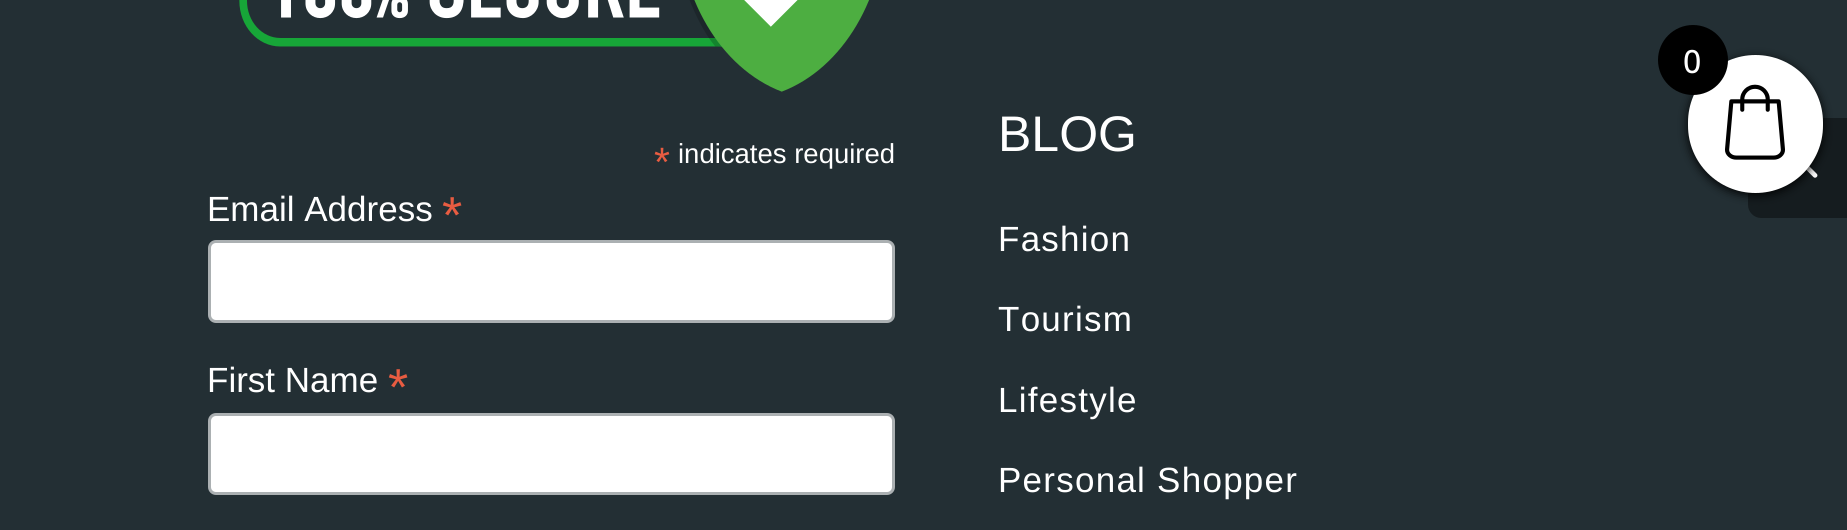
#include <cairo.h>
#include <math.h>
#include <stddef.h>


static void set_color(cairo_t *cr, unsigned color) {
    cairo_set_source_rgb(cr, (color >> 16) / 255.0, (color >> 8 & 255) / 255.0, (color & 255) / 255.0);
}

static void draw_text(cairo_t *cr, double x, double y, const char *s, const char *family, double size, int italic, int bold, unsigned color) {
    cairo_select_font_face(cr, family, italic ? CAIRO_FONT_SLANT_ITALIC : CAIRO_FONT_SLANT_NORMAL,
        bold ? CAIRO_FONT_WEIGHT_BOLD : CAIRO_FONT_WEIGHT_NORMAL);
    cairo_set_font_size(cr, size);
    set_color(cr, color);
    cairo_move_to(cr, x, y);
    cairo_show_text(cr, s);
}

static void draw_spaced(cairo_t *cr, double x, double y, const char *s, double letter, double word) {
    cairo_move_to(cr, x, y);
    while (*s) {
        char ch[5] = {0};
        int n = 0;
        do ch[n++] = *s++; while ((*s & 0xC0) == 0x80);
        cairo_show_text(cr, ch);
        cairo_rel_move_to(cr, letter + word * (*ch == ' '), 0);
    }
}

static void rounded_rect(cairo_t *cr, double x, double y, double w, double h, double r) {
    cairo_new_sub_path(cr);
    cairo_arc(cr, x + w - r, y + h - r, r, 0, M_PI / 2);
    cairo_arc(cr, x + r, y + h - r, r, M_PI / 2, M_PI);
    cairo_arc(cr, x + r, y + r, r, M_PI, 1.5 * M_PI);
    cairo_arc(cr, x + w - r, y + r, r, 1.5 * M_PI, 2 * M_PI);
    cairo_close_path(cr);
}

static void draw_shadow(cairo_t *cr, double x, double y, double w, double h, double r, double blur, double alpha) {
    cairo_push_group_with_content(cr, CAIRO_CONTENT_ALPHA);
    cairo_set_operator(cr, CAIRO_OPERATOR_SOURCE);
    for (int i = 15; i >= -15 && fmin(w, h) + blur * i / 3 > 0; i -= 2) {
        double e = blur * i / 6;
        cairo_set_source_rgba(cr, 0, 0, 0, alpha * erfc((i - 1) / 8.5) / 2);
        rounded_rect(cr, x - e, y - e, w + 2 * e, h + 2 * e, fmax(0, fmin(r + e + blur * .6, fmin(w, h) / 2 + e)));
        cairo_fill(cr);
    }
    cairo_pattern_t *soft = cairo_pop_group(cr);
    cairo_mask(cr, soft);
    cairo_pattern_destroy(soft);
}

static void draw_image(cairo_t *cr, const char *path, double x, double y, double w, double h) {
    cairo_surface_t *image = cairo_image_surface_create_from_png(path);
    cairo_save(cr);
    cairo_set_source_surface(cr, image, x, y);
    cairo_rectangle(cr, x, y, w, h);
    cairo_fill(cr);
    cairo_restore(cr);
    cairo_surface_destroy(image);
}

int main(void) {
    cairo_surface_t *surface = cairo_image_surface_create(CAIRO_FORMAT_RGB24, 1847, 530);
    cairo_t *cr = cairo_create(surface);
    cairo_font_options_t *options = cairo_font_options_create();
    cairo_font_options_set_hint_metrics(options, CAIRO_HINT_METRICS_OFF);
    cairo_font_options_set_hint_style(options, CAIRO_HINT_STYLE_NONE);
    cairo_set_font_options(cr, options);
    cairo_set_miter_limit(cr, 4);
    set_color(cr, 0x232F34);
    cairo_paint(cr);
    set_color(cr, 0x151C1F);
    cairo_new_path(cr);
    cairo_move_to(cr, 1761, 118);
    cairo_line_to(cr, 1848, 118);
    cairo_line_to(cr, 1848, 218);
    cairo_line_to(cr, 1761, 218);
    cairo_curve_to(cr, 1754, 218, 1748, 212, 1748, 205);
    cairo_line_to(cr, 1748, 131);
    cairo_curve_to(cr, 1748, 124, 1754, 118, 1761, 118);
    cairo_close_path(cr);
    cairo_fill(cr);
    draw_image(cr, "assets/img3.png", 1806, 166, 12, 12);
    set_color(cr, 0x000000);
    draw_shadow(cr, 1688, 58, 135, 137, 67.5, 5, 1);
    set_color(cr, 0xFFFFFF);
    rounded_rect(cr, 1688, 55, 135, 138, 67.5);
    cairo_fill(cr);
    set_color(cr, 0x000000);
    cairo_arc(cr, 1693, 60, 35, 0, 2 * M_PI);
    cairo_fill(cr);
    draw_text(cr, 1683, 73, "0", "Open Sans Medium", 32, 0, 0, 0xFFFFFF);
    draw_image(cr, "assets/img1.png", 1725, 84, 60, 76);
    draw_image(cr, "assets/img2.png", 239, 0, 630, 92);
    draw_text(cr, 654, 176, "*", "Liberation Sans", 41, 0, 0, 0xE85C41);
    draw_text(cr, 678, 163, "indicates required", "Liberation Sans", 27.5, 0, 0, 0xFFFFFF);
    draw_text(cr, 207, 221, "Email Address", "Liberation Sans", 35, 0, 0, 0xFFFFFF);
    draw_text(cr, 442, 233, "*", "Liberation Sans", 52, 0, 0, 0xE85C41);
    set_color(cr, 0xFFFFFF);
    rounded_rect(cr, 209.5, 241.5, 684, 80, 6.5);
    cairo_fill_preserve(cr);
    set_color(cr, 0xABB0B2);
    cairo_set_line_width(cr, 3);
    cairo_stroke(cr);
    draw_text(cr, 207, 392, "First Name", "Liberation Sans", 35, 0, 0, 0xFFFFFF);
    draw_text(cr, 388, 405, "*", "Liberation Sans", 52, 0, 0, 0xE85C41);
    set_color(cr, 0xFFFFFF);
    rounded_rect(cr, 209.5, 414.5, 684, 79, 6.5);
    cairo_fill_preserve(cr);
    set_color(cr, 0xABB0B2);
    cairo_stroke(cr);
    draw_text(cr, 998, 151, "BLOG", "Liberation Sans", 50, 0, 0, 0xFFFFFF);
    cairo_set_font_size(cr, 35);
    draw_spaced(cr, 998, 251, "Fashion", 1.25, 0);
    draw_spaced(cr, 998, 331, "Tourism", 1.25, 0);
    draw_spaced(cr, 998, 412, "Lifestyle", 1.25, 0);
    draw_spaced(cr, 998, 492, "Personal Shopper", 1.25, 0);
    cairo_surface_write_to_png(surface, "output.png");
    cairo_font_options_destroy(options);
    cairo_destroy(cr);
    cairo_surface_destroy(surface);
    return 0;
}
